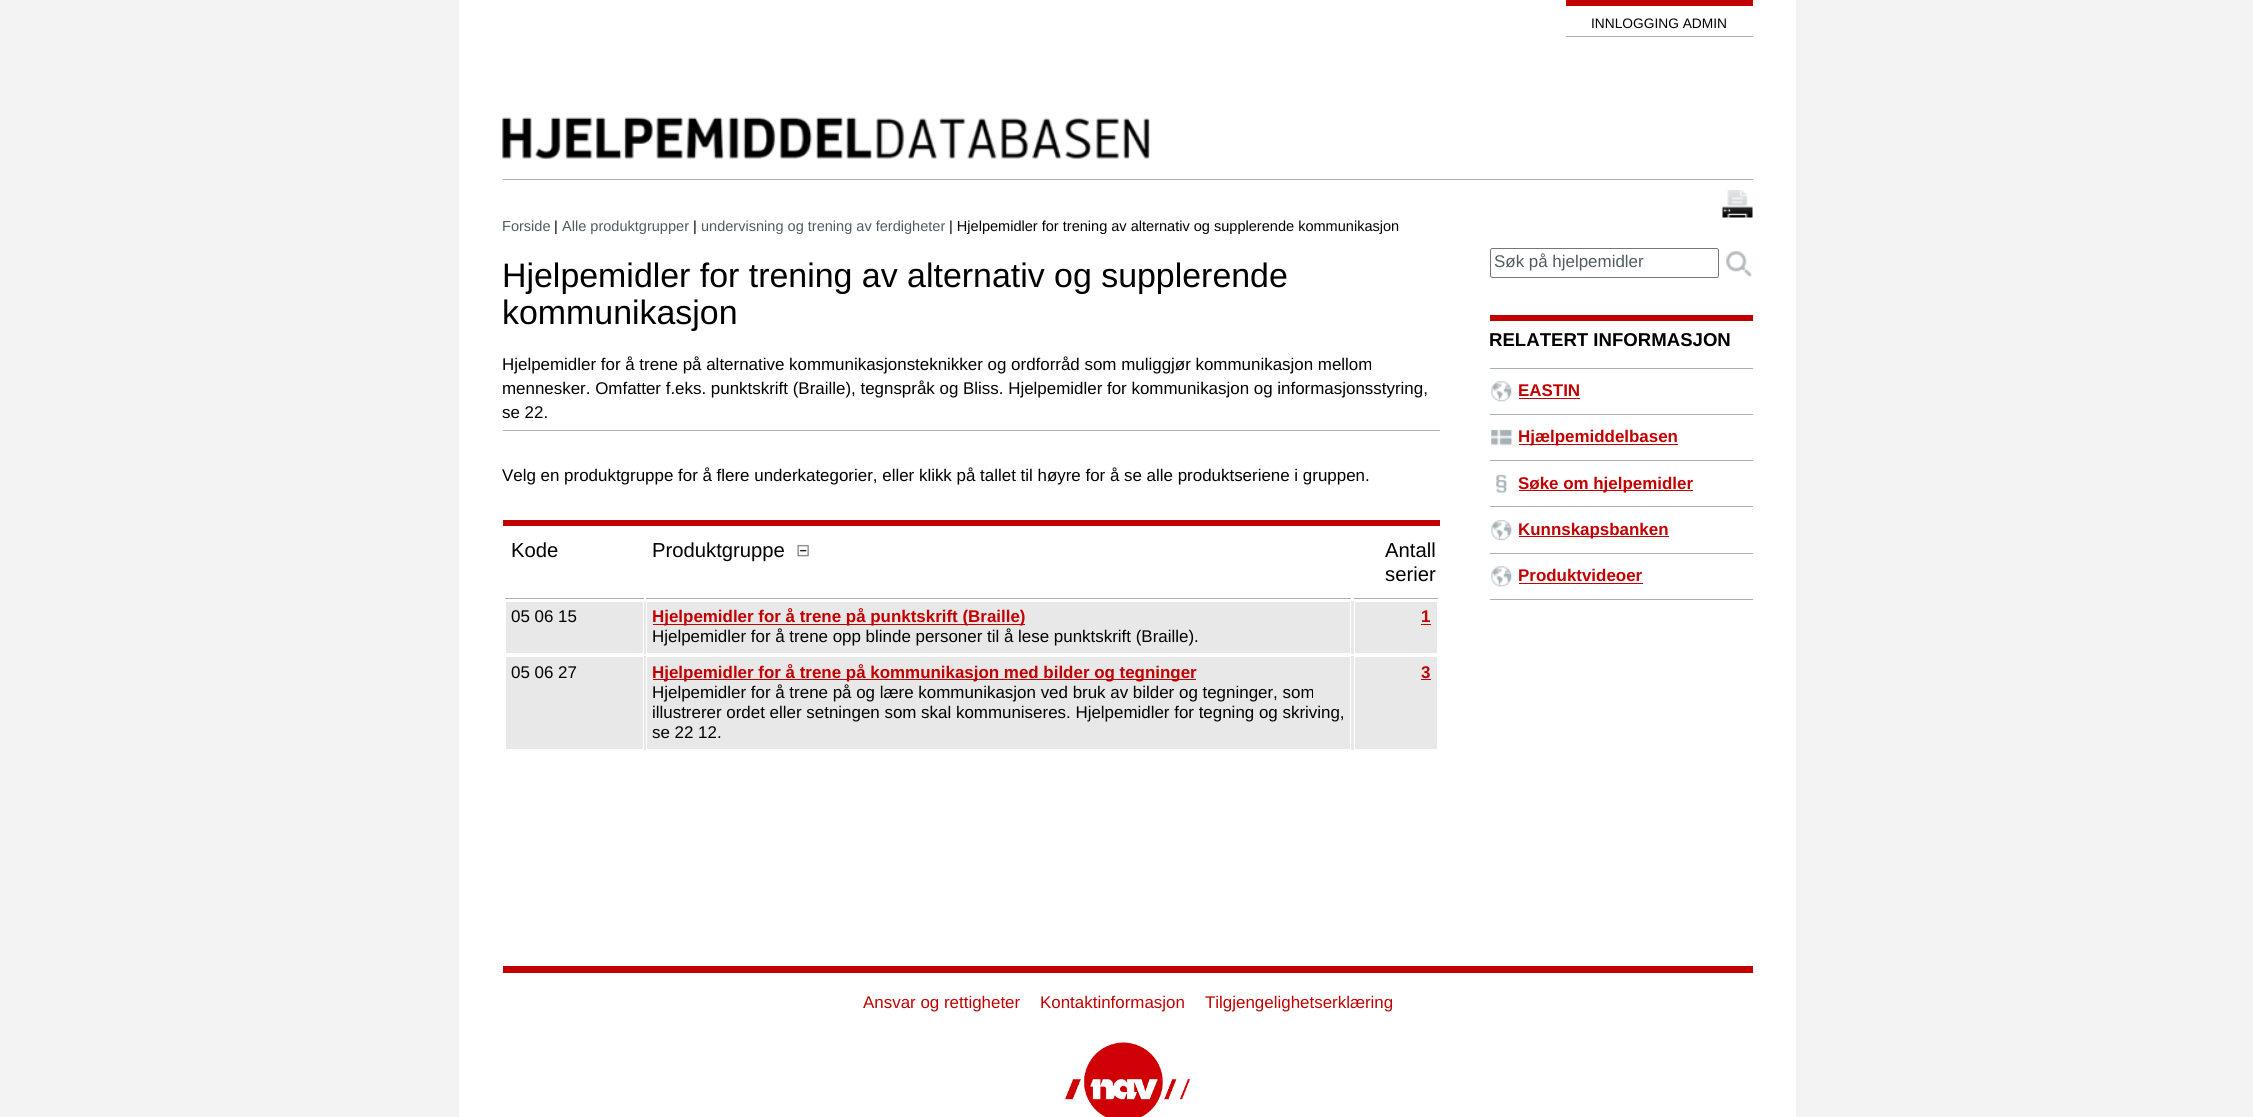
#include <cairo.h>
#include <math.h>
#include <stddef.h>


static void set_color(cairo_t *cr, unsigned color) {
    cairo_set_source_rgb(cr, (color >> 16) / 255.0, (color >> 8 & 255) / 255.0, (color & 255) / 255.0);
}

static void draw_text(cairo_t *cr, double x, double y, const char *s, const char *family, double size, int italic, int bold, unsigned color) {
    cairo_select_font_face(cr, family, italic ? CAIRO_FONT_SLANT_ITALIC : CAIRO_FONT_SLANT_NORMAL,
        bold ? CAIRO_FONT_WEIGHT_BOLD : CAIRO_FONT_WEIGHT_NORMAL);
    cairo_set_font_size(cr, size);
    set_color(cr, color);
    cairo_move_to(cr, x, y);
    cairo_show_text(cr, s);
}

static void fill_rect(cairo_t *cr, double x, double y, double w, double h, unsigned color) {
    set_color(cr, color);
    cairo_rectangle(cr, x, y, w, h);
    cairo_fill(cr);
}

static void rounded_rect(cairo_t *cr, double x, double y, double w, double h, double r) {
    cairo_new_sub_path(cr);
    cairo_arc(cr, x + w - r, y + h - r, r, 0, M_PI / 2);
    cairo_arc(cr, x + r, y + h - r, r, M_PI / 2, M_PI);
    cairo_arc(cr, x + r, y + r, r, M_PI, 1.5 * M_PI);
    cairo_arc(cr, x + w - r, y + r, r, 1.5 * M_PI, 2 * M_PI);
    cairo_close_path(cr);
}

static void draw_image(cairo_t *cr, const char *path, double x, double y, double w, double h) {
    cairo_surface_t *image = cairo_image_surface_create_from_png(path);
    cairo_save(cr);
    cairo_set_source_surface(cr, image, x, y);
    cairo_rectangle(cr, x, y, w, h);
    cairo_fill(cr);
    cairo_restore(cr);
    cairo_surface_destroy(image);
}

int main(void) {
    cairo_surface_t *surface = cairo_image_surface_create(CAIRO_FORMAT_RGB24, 2253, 1117);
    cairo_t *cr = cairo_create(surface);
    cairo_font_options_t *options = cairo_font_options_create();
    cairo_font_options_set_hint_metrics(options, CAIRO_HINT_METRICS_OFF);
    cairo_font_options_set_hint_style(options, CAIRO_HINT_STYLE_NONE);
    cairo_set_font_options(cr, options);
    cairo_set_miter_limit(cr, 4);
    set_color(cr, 0xF3F3F3);
    cairo_paint(cr);
    fill_rect(cr, 459, 0, 1337, 1117, 0xFFFFFF);
    fill_rect(cr, 1566, 0, 187, 6, 0xC30000);
    draw_text(cr, 1591, 28, "INNLOGGING ADMIN", "Liberation Sans", 13.75, 0, 0, 0x000000);
    fill_rect(cr, 1566, 36, 187, 1, 0xA7B0B5);
    draw_image(cr, "assets/img1.png", 502, 117, 648, 43);
    fill_rect(cr, 503, 179, 1250, 1, 0xA7B0B5);
    draw_image(cr, "assets/img2.png", 1722, 190, 31, 28);
    draw_text(cr, 502, 231, "Forside", "Liberation Sans", 14.55, 0, 0, 0x4F5B61);
    draw_text(cr, 554, 231, "|", "Liberation Sans", 14.55, 0, 0, 0x000000);
    draw_text(cr, 562, 231, "Alle produktgrupper", "Liberation Sans", 14.55, 0, 0, 0x4F5B61);
    draw_text(cr, 693, 231, "|", "Liberation Sans", 14.55, 0, 0, 0x000000);
    draw_text(cr, 701, 231, "undervisning og trening av ferdigheter", "Liberation Sans", 14.55, 0, 0, 0x4F5B61);
    draw_text(cr, 949, 231, "| Hjelpemidler for trening av alternativ og supplerende kommunikasjon", "Liberation Sans", 14.55, 0, 0, 0x000000);
    fill_rect(cr, 503, 430, 937, 1, 0xA7B0B5);
    draw_text(cr, 502, 287, "Hjelpemidler for trening av alternativ og supplerende", "Liberation Sans", 33.9, 0, 0, 0x000000);
    draw_text(cr, 502, 324, "kommunikasjon", "Liberation Sans", 33.9, 0, 0, 0x000000);
    draw_text(cr, 502, 370, "Hjelpemidler for å trene på alternative kommunikasjonsteknikker og ordforråd som muliggjør kommunikasjon mellom", "Liberation Sans", 16.93, 0, 0, 0x000000);
    draw_text(cr, 502, 394, "mennesker. Omfatter f.eks. punktskrift (Braille), tegnspråk og Bliss. Hjelpemidler for kommunikasjon og informasjonsstyring,", "Liberation Sans", 16.93, 0, 0, 0x000000);
    draw_text(cr, 502, 418, "se 22.", "Liberation Sans", 16.93, 0, 0, 0x000000);
    fill_rect(cr, 503, 520, 937, 6, 0xC30000);
    draw_text(cr, 502, 481, "Velg en produktgruppe for å flere underkategorier, eller klikk på tallet til høyre for å se alle produktseriene i gruppen.", "Liberation Sans", 16.93, 0, 0, 0x000000);
    fill_rect(cr, 505, 598, 139, 1, 0xA7B0B5);
    draw_text(cr, 511, 557, "Kode", "Liberation Sans", 20.25, 0, 0, 0x000000);
    fill_rect(cr, 646, 598, 705, 1, 0xA7B0B5);
    draw_text(cr, 652, 557, "Produktgruppe", "Liberation Sans", 20.25, 0, 0, 0x000000);
    draw_image(cr, "assets/img3.png", 797, 544, 12, 13);
    fill_rect(cr, 1354, 598, 84, 1, 0xA7B0B5);
    draw_text(cr, 1385, 557, "Antall", "Liberation Sans", 20.25, 0, 0, 0x000000);
    draw_text(cr, 1385, 581, "serier", "Liberation Sans", 20.25, 0, 0, 0x000000);
    fill_rect(cr, 506, 601, 931, 53, 0xE8E8E8);
    cairo_rectangle(cr, 505.5, 601.5, 138, 52);
    set_color(cr, 0xFFFFFF);
    cairo_set_line_width(cr, 1);
    cairo_stroke(cr);
    draw_text(cr, 511, 622, "05 06 15", "Liberation Sans", 16.93, 0, 0, 0x000000);
    cairo_rectangle(cr, 646.5, 601.5, 704, 52);
    set_color(cr, 0xFFFFFF);
    cairo_stroke(cr);
    fill_rect(cr, 653, 624, 372, 1, 0xC30000);
    draw_text(cr, 652, 622, "Hjelpemidler for å trene på punktskrift (Braille)", "Liberation Sans", 16.93, 0, 1, 0xC30000);
    draw_text(cr, 652, 642, "Hjelpemidler for å trene opp blinde personer til å lese punktskrift (Braille).", "Liberation Sans", 16.93, 0, 0, 0x000000);
    cairo_rectangle(cr, 1354.5, 601.5, 83, 52);
    set_color(cr, 0xFFFFFF);
    cairo_stroke(cr);
    draw_text(cr, 1421, 622, "1", "Liberation Sans", 16.93, 0, 1, 0xC30000);
    fill_rect(cr, 1421, 624, 10, 1, 0xC30000);
    fill_rect(cr, 506, 656, 931, 94, 0xE8E8E8);
    cairo_rectangle(cr, 505.5, 656.5, 138, 93);
    set_color(cr, 0xFFFFFF);
    cairo_stroke(cr);
    draw_text(cr, 511, 678, "05 06 27", "Liberation Sans", 16.93, 0, 0, 0x000000);
    cairo_rectangle(cr, 646.5, 656.5, 704, 93);
    set_color(cr, 0xFFFFFF);
    cairo_stroke(cr);
    fill_rect(cr, 653, 679, 543, 1, 0xC30000);
    draw_text(cr, 652, 678, "Hjelpemidler for å trene på kommunikasjon med bilder og tegninger", "Liberation Sans", 16.93, 0, 1, 0xC30000);
    draw_text(cr, 652, 698, "Hjelpemidler for å trene på og lære kommunikasjon ved bruk av bilder og tegninger, som", "Liberation Sans", 16.93, 0, 0, 0x000000);
    draw_text(cr, 652, 718, "illustrerer ordet eller setningen som skal kommuniseres. Hjelpemidler for tegning og skriving,", "Liberation Sans", 16.93, 0, 0, 0x000000);
    draw_text(cr, 652, 738, "se 22 12.", "Liberation Sans", 16.93, 0, 0, 0x000000);
    cairo_rectangle(cr, 1354.5, 656.5, 83, 93);
    set_color(cr, 0xFFFFFF);
    cairo_stroke(cr);
    draw_text(cr, 1421, 678, "3", "Liberation Sans", 16.93, 0, 1, 0xC30000);
    fill_rect(cr, 1421, 679, 10, 1, 0xC30000);
    rounded_rect(cr, 1490.5, 248.5, 228, 29, 2);
    set_color(cr, 0x767676);
    cairo_stroke(cr);
    draw_text(cr, 1494, 267, "Søk på hjelpemidler", "Liberation Sans", 16.93, 0, 0, 0x4F5B61);
    draw_image(cr, "assets/img4.png", 1726, 251, 26, 26);
    fill_rect(cr, 1490, 315, 263, 6, 0xC30000);
    fill_rect(cr, 1490, 368, 263, 1, 0xA7B0B5);
    draw_text(cr, 1489, 346, "RELATERT INFORMASJON", "Liberation Sans", 18.6, 0, 1, 0x000000);
    fill_rect(cr, 1490, 414, 263, 1, 0xA7B0B5);
    draw_image(cr, "assets/img5.png", 1491, 381, 21, 21);
    draw_text(cr, 1518, 396, "EASTIN", "Liberation Sans", 16.93, 0, 1, 0xC30000);
    fill_rect(cr, 1519, 398, 61, 1, 0xC30000);
    fill_rect(cr, 1490, 460, 263, 1, 0xA7B0B5);
    draw_image(cr, "assets/img6.png", 1491, 429, 22, 17);
    fill_rect(cr, 1519, 444, 159, 1, 0xC30000);
    draw_text(cr, 1518, 442, "Hjælpemiddelbasen", "Liberation Sans", 16.93, 0, 1, 0xC30000);
    fill_rect(cr, 1490, 506, 263, 1, 0xA7B0B5);
    draw_image(cr, "assets/img7.png", 1496, 474, 11, 19);
    fill_rect(cr, 1519, 490, 174, 1, 0xC30000);
    draw_text(cr, 1518, 489, "Søke om hjelpemidler", "Liberation Sans", 16.93, 0, 1, 0xC30000);
    fill_rect(cr, 1490, 553, 263, 1, 0xA7B0B5);
    draw_image(cr, "assets/img8.png", 1491, 520, 21, 21);
    fill_rect(cr, 1519, 536, 150, 1, 0xC30000);
    draw_text(cr, 1518, 535, "Kunnskapsbanken", "Liberation Sans", 16.93, 0, 1, 0xC30000);
    fill_rect(cr, 1490, 599, 263, 1, 0xA7B0B5);
    draw_image(cr, "assets/img5.png", 1491, 566, 21, 21);
    draw_text(cr, 1518, 581, "Produktvideoer", "Liberation Sans", 16.93, 0, 1, 0xC30000);
    fill_rect(cr, 1519, 583, 124, 1, 0xC30000);
    fill_rect(cr, 503, 966, 1250, 7, 0xC30000);
    draw_text(cr, 863, 1008, "Ansvar og rettigheter", "Liberation Sans", 16.93, 0, 0, 0xC30000);
    draw_text(cr, 1040, 1008, "Kontaktinformasjon", "Liberation Sans", 16.93, 0, 0, 0xC30000);
    draw_text(cr, 1205, 1008, "Tilgjengelighetserklæring", "Liberation Sans", 16.93, 0, 0, 0xC30000);
    draw_image(cr, "assets/img9.png", 1065, 1042, 125, 75);
    cairo_surface_write_to_png(surface, "output.png");
    cairo_font_options_destroy(options);
    cairo_destroy(cr);
    cairo_surface_destroy(surface);
    return 0;
}
